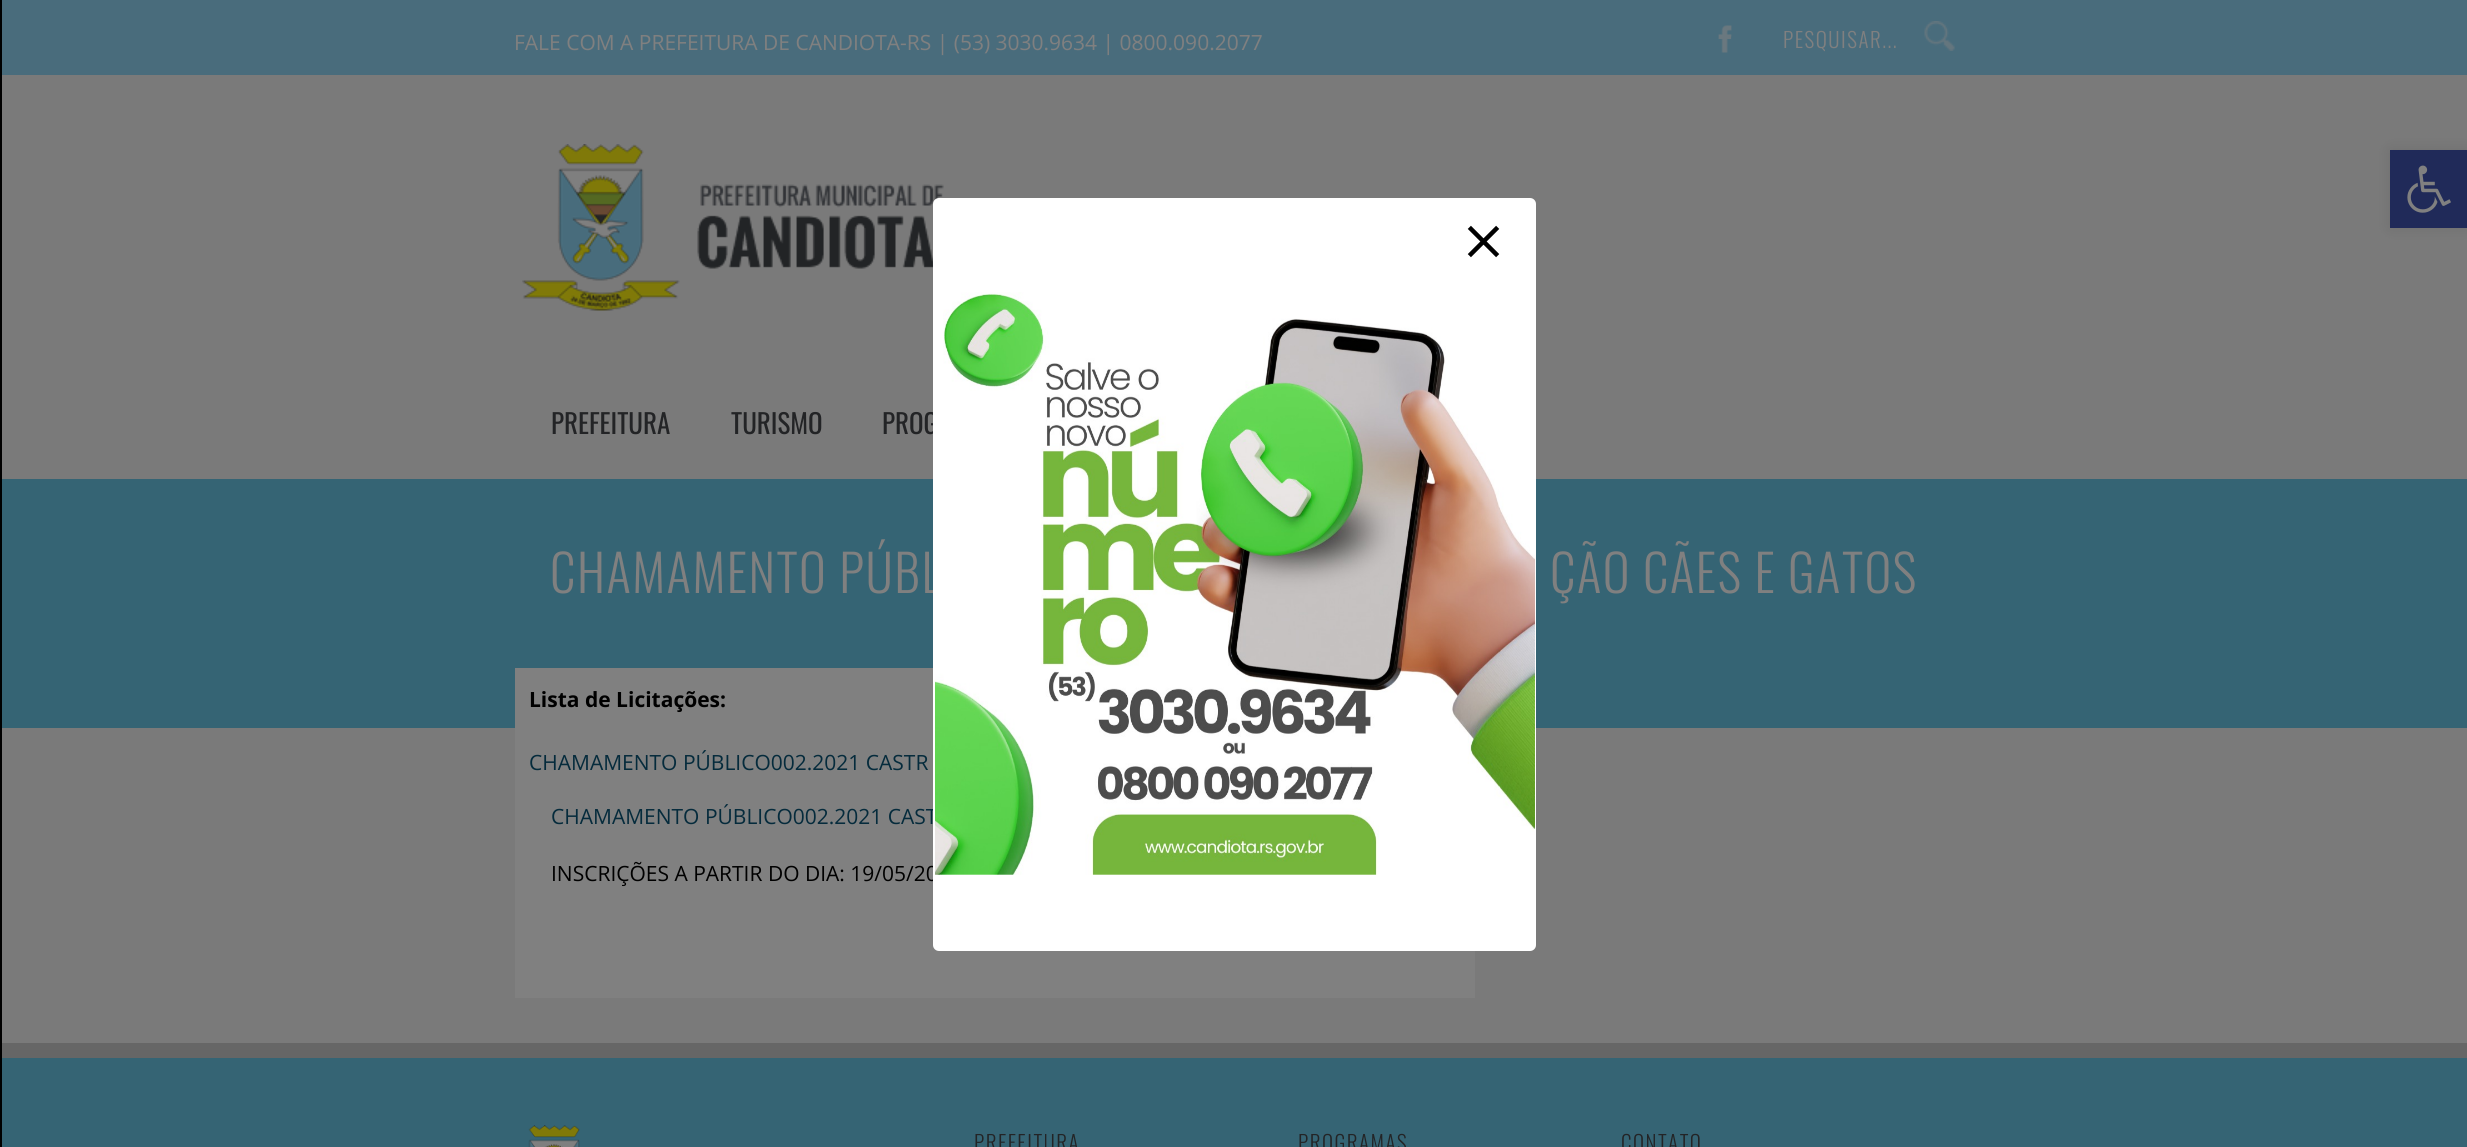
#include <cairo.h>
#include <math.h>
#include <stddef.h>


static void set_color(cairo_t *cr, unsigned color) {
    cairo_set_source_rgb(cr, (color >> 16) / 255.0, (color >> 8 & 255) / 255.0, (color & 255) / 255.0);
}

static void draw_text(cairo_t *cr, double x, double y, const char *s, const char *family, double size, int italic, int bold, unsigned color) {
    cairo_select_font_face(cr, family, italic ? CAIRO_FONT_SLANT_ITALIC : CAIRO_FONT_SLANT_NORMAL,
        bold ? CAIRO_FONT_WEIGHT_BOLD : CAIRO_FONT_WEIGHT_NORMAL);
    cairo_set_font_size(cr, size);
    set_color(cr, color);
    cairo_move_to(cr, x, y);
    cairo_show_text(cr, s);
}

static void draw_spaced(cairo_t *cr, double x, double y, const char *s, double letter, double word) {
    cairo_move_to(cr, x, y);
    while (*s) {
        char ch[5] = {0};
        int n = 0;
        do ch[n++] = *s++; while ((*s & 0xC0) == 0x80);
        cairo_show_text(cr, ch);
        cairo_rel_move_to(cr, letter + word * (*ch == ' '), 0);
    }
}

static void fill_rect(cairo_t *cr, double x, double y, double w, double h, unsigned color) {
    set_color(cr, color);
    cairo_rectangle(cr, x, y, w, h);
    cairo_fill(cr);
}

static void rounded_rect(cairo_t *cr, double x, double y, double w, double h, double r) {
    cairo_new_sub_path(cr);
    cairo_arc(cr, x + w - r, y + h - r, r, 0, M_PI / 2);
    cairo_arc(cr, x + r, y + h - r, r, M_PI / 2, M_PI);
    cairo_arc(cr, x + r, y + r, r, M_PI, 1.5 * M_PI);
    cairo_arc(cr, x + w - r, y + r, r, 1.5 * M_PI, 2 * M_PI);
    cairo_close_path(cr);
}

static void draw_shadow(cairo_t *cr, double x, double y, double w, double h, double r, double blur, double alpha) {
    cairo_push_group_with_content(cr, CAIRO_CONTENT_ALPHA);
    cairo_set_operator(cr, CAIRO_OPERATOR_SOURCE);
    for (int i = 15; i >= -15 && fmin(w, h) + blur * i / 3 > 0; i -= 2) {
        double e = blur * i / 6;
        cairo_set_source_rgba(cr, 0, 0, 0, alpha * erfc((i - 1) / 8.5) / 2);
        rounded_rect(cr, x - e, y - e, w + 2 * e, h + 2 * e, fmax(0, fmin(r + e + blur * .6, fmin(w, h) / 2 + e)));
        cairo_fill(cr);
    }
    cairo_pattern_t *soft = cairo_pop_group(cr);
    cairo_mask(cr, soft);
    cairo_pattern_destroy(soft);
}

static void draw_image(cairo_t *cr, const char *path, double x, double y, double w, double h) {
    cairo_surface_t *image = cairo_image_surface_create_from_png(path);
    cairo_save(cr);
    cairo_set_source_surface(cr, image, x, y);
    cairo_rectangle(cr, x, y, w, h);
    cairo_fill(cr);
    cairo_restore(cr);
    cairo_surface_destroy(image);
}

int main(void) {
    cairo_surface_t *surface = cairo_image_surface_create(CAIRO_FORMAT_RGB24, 2467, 1147);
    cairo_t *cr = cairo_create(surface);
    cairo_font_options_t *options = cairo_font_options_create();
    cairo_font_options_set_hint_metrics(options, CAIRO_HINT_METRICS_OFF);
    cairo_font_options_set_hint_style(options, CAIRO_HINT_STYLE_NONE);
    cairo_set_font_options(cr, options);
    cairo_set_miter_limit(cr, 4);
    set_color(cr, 0x7A7A7A);
    cairo_paint(cr);
    fill_rect(cr, 0, 0, 2, 1147, 0x000000);
    fill_rect(cr, 2, 0, 2465, 75, 0x496C7C);
    draw_text(cr, 514, 50, "FALE COM A PREFEITURA DE CANDIOTA-RS | (53) 3030.9634 | 0800.090.2077", "Open Sans", 21, 0, 0, 0x808080);
    draw_image(cr, "assets/img1.png", 1718, 25, 14, 28);
    cairo_select_font_face(cr, "Oswald Light", CAIRO_FONT_SLANT_NORMAL, CAIRO_FONT_WEIGHT_NORMAL);
    draw_spaced(cr, 1783, 48, "PESQUISAR...", 1.5, 0);
    draw_image(cr, "assets/img2.png", 1924, 21, 31, 30);
    draw_image(cr, "assets/img3.png", 522, 144, 422, 167);
    draw_text(cr, 551, 434, "PREFEITURA", "Oswald", 27, 0, 0, 0x232426);
    draw_text(cr, 731, 434, "TURISMO", "Oswald", 27, 0, 0, 0x232426);
    draw_text(cr, 882, 434, "PROG", "Oswald", 27, 0, 0, 0x232426);
    fill_rect(cr, 2, 479, 2465, 249, 0x356474);
    cairo_select_font_face(cr, "Oswald Light", CAIRO_FONT_SLANT_NORMAL, CAIRO_FONT_WEIGHT_NORMAL);
    cairo_set_font_size(cr, 51);
    set_color(cr, 0x808080);
    draw_spaced(cr, 550, 593, "CHAMAMENTO PÚBL", 1.5, 0);
    draw_spaced(cr, 1550, 593, "ÇÃO CÃES E GATOS", 1.5, 0);
    fill_rect(cr, 515, 668, 960, 330, 0x808080);
    draw_text(cr, 529, 707, "Lista de Licitações:", "Open Sans", 21, 0, 1, 0x000000);
    draw_text(cr, 529, 770, "CHAMAMENTO PÚBLICO002.2021 CASTR", "Open Sans", 21, 0, 0, 0x052B3C);
    draw_text(cr, 551, 824, "CHAMAMENTO PÚBLICO002.2021 CAST", "Open Sans", 21, 0, 0, 0x052B3C);
    draw_text(cr, 551, 881, "INSCRIÇÕES A PARTIR DO DIA: 19/05/20", "Open Sans", 21, 0, 0, 0x000000);
    fill_rect(cr, 2, 1058, 2465, 89, 0x356474);
    fill_rect(cr, 2, 1043, 2465, 15, 0x666666);
    draw_image(cr, "assets/img4.png", 528, 1125, 52, 22);
    cairo_select_font_face(cr, "Oswald Light", CAIRO_FONT_SLANT_NORMAL, CAIRO_FONT_WEIGHT_NORMAL);
    set_color(cr, 0x232426);
    draw_spaced(cr, 974, 1151, "PREFEITURA", 1.5, 0);
    draw_spaced(cr, 1298, 1151, "PROGRAMAS", 1.5, 0);
    draw_spaced(cr, 1621, 1151, "CONTATO", 1.5, 0);
    set_color(cr, 0x000000);
    draw_shadow(cr, 2390, 150, 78, 78, 0, 7.5, 0.1);
    fill_rect(cr, 2390, 150, 77, 78, 0x202A59);
    draw_image(cr, "assets/img5.png", 2407, 165, 44, 48);
    set_color(cr, 0xFFFFFF);
    rounded_rect(cr, 934, 199, 601, 751, 5);
    cairo_fill_preserve(cr);
    cairo_stroke(cr);
    draw_image(cr, "assets/img6.png", 1467, 225, 33, 33);
    draw_image(cr, "assets/img7.png", 935, 292, 600, 583);
    cairo_surface_write_to_png(surface, "output.png");
    cairo_font_options_destroy(options);
    cairo_destroy(cr);
    cairo_surface_destroy(surface);
    return 0;
}
